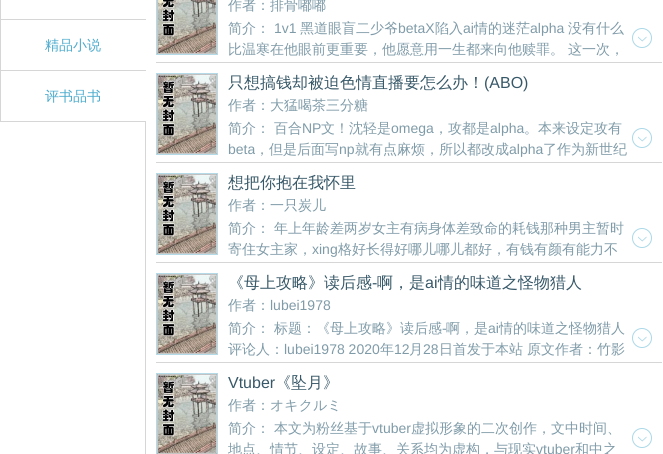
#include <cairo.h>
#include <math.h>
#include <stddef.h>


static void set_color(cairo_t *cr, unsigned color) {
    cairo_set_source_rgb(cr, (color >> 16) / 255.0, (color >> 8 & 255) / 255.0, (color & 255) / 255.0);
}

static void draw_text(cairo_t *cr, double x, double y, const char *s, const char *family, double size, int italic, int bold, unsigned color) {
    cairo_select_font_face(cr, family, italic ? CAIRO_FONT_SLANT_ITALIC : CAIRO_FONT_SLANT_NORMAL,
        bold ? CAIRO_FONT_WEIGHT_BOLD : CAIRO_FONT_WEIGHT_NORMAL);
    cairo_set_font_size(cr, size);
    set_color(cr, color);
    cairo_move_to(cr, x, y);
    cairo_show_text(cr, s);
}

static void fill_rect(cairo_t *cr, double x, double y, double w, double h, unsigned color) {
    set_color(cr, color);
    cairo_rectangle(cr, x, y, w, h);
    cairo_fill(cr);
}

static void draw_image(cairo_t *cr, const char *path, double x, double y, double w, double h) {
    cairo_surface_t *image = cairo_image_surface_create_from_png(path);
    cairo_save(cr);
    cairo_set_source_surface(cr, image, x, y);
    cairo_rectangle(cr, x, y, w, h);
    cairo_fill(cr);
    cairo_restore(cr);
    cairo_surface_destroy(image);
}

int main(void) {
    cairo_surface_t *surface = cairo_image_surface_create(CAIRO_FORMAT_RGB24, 663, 454);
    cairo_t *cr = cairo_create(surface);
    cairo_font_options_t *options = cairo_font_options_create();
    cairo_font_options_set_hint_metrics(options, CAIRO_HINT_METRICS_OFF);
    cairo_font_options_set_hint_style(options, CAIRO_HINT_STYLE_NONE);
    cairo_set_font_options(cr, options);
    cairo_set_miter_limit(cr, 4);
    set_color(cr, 0xFFFFFF);
    cairo_paint(cr);
    fill_rect(cr, 0, 0, 1, 20, 0xD6D6D6);
    fill_rect(cr, 0, 19, 146, 1, 0xD6D6D6);
    fill_rect(cr, 0, 19, 1, 52, 0xD6D6D6);
    draw_text(cr, 45, 50, "精品小说", "WenQuanYi Zen Hei Medium", 14, 0, 0, 0x4BAACD);
    fill_rect(cr, 0, 70, 146, 1, 0xD6D6D6);
    fill_rect(cr, 0, 121, 146, 1, 0xD6D6D6);
    fill_rect(cr, 0, 70, 1, 52, 0xD6D6D6);
    draw_text(cr, 45, 101, "评书品书", "WenQuanYi Zen Hei Medium", 14, 0, 0, 0x4BAACD);
    fill_rect(cr, 145, 122, 1, 332, 0xD6D6D6);
    fill_rect(cr, 156, 62, 506, 1, 0xD6D6D6);
    cairo_rectangle(cr, 156.5, -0.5, 61, 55);
    set_color(cr, 0xB4DAE8);
    cairo_set_line_width(cr, 1);
    cairo_stroke(cr);
    draw_image(cr, "assets/img1.png", 157, 0, 60, 54);
    draw_text(cr, 228, 10, "作者：排骨嘟嘟", "WenQuanYi Zen Hei Medium", 14, 0, 0, 0x7F9BA8);
    draw_text(cr, 228, 33, "简介：", "WenQuanYi Zen Hei Medium", 14, 0, 0, 0x7F9BA8);
    draw_text(cr, 274, 33, "1v1", "Liberation Sans", 14, 0, 0, 0x7F9BA8);
    draw_text(cr, 300, 33, "黑道眼盲二少爷", "WenQuanYi Zen Hei Medium", 14, 0, 0, 0x7F9BA8);
    draw_text(cr, 398, 33, "betaX", "Liberation Sans", 14, 0, 0, 0x7F9BA8);
    draw_text(cr, 435, 33, "陷入", "WenQuanYi Zen Hei Medium", 14, 0, 0, 0x7F9BA8);
    draw_text(cr, 463, 33, "ai", "Liberation Sans", 14, 0, 0, 0x7F9BA8);
    draw_text(cr, 474, 33, "情的迷茫", "WenQuanYi Zen Hei Medium", 14, 0, 0, 0x7F9BA8);
    draw_text(cr, 530, 33, "alpha", "Liberation Sans", 14, 0, 0, 0x7F9BA8);
    draw_text(cr, 568, 33, "没有什么", "WenQuanYi Zen Hei Medium", 14, 0, 0, 0x7F9BA8);
    draw_image(cr, "assets/img2.png", 632, 28, 20, 20);
    draw_text(cr, 228, 54, "比温寒在他眼前更重要，他愿意用一生都来向他赎罪。", "WenQuanYi Zen Hei Medium", 14, 0, 0, 0x7F9BA8);
    draw_text(cr, 568, 54, "这一次，", "WenQuanYi Zen Hei Medium", 14, 0, 0, 0x7F9BA8);
    fill_rect(cr, 156, 162, 506, 1, 0xD6D6D6);
    cairo_rectangle(cr, 156.5, 73.5, 61, 81);
    set_color(cr, 0xB4DAE8);
    cairo_stroke(cr);
    draw_image(cr, "assets/img3.png", 157, 74, 60, 80);
    draw_text(cr, 228, 88, "只想搞钱却被迫色情直播要怎么办！", "WenQuanYi Zen Hei Medium", 16, 0, 0, 0x375868);
    draw_text(cr, 484, 88, "(ABO)", "Liberation Sans", 16, 0, 0, 0x375868);
    draw_text(cr, 228, 110, "作者：大猛喝茶三分糖", "WenQuanYi Zen Hei Medium", 14, 0, 0, 0x7F9BA8);
    draw_text(cr, 228, 133, "简介：", "WenQuanYi Zen Hei Medium", 14, 0, 0, 0x7F9BA8);
    draw_text(cr, 274, 133, "百合", "WenQuanYi Zen Hei Medium", 14, 0, 0, 0x7F9BA8);
    draw_text(cr, 302, 133, "NP", "Liberation Sans", 14, 0, 0, 0x7F9BA8);
    draw_text(cr, 321, 133, "文！沈轻是", "WenQuanYi Zen Hei Medium", 14, 0, 0, 0x7F9BA8);
    draw_text(cr, 391, 133, "omega", "Liberation Sans", 14, 0, 0, 0x7F9BA8);
    draw_text(cr, 434, 133, "，攻都是", "WenQuanYi Zen Hei Medium", 14, 0, 0, 0x7F9BA8);
    draw_text(cr, 490, 133, "alpha", "Liberation Sans", 14, 0, 0, 0x7F9BA8);
    draw_text(cr, 524, 133, "。本来设定攻有", "WenQuanYi Zen Hei Medium", 14, 0, 0, 0x7F9BA8);
    draw_image(cr, "assets/img2.png", 632, 128, 20, 20);
    draw_text(cr, 228, 154, "beta", "Liberation Sans", 14, 0, 0, 0x7F9BA8);
    draw_text(cr, 255, 154, "，但是后面写", "WenQuanYi Zen Hei Medium", 14, 0, 0, 0x7F9BA8);
    draw_text(cr, 339, 154, "np", "Liberation Sans", 14, 0, 0, 0x7F9BA8);
    draw_text(cr, 355, 154, "就有点麻烦，所以都改成", "WenQuanYi Zen Hei Medium", 14, 0, 0, 0x7F9BA8);
    draw_text(cr, 509, 154, "alpha", "Liberation Sans", 14, 0, 0, 0x7F9BA8);
    draw_text(cr, 543, 154, "了作为新世纪", "WenQuanYi Zen Hei Medium", 14, 0, 0, 0x7F9BA8);
    fill_rect(cr, 156, 262, 506, 1, 0xD6D6D6);
    cairo_rectangle(cr, 156.5, 173.5, 61, 81);
    set_color(cr, 0xB4DAE8);
    cairo_stroke(cr);
    draw_image(cr, "assets/img3.png", 157, 174, 60, 80);
    draw_text(cr, 228, 188, "想把你抱在我怀里", "WenQuanYi Zen Hei Medium", 16, 0, 0, 0x375868);
    draw_text(cr, 228, 210, "作者：一只炭儿", "WenQuanYi Zen Hei Medium", 14, 0, 0, 0x7F9BA8);
    draw_text(cr, 228, 233, "简介：", "WenQuanYi Zen Hei Medium", 14, 0, 0, 0x7F9BA8);
    draw_text(cr, 274, 233, "年上年龄差两岁女主有病身体差致命的耗钱那种男主暂时", "WenQuanYi Zen Hei Medium", 14, 0, 0, 0x7F9BA8);
    draw_image(cr, "assets/img2.png", 632, 228, 20, 20);
    draw_text(cr, 228, 254, "寄住女主家，", "WenQuanYi Zen Hei Medium", 14, 0, 0, 0x7F9BA8);
    draw_text(cr, 312, 254, "xing", "Liberation Sans", 14, 0, 0, 0x7F9BA8);
    draw_text(cr, 338, 254, "格好长得好哪儿哪儿都好，有钱有颜有能力不", "WenQuanYi Zen Hei Medium", 14, 0, 0, 0x7F9BA8);
    fill_rect(cr, 156, 362, 506, 1, 0xD6D6D6);
    cairo_rectangle(cr, 156.5, 273.5, 61, 81);
    set_color(cr, 0xB4DAE8);
    cairo_stroke(cr);
    draw_image(cr, "assets/img3.png", 157, 274, 60, 80);
    draw_text(cr, 228, 288, "《母上攻略》读后感", "WenQuanYi Zen Hei Medium", 16, 0, 0, 0x375868);
    draw_text(cr, 372, 288, "-", "Liberation Sans", 16, 0, 0, 0x375868);
    draw_text(cr, 377, 288, "啊，是", "WenQuanYi Zen Hei Medium", 16, 0, 0, 0x375868);
    draw_text(cr, 425, 288, "ai", "Liberation Sans", 16, 0, 0, 0x375868);
    draw_text(cr, 438, 288, "情的味道之怪物猎人", "WenQuanYi Zen Hei Medium", 16, 0, 0, 0x375868);
    draw_text(cr, 228, 310, "作者：", "WenQuanYi Zen Hei Medium", 14, 0, 0, 0x7F9BA8);
    draw_text(cr, 270, 310, "lubei1978", "Liberation Sans", 14, 0, 0, 0x7F9BA8);
    draw_text(cr, 228, 333, "简介：", "WenQuanYi Zen Hei Medium", 14, 0, 0, 0x7F9BA8);
    draw_text(cr, 274, 333, "标题：《母上攻略》读后感", "WenQuanYi Zen Hei Medium", 14, 0, 0, 0x7F9BA8);
    draw_text(cr, 442, 333, "-", "Liberation Sans", 14, 0, 0, 0x7F9BA8);
    draw_text(cr, 446, 333, "啊，是", "WenQuanYi Zen Hei Medium", 14, 0, 0, 0x7F9BA8);
    draw_text(cr, 488, 333, "ai", "Liberation Sans", 14, 0, 0, 0x7F9BA8);
    draw_text(cr, 499, 333, "情的味道之怪物猎人", "WenQuanYi Zen Hei Medium", 14, 0, 0, 0x7F9BA8);
    draw_image(cr, "assets/img2.png", 632, 328, 20, 20);
    draw_text(cr, 228, 354, "评论人：", "WenQuanYi Zen Hei Medium", 14, 0, 0, 0x7F9BA8);
    draw_text(cr, 284, 354, "lubei1978 2020", "Liberation Sans", 14, 0, 0, 0x7F9BA8);
    draw_text(cr, 380, 354, "年", "WenQuanYi Zen Hei Medium", 14, 0, 0, 0x7F9BA8);
    draw_text(cr, 394, 354, "12", "Liberation Sans", 14, 0, 0, 0x7F9BA8);
    draw_text(cr, 409, 354, "月", "WenQuanYi Zen Hei Medium", 14, 0, 0, 0x7F9BA8);
    draw_text(cr, 423, 354, "28", "Liberation Sans", 14, 0, 0, 0x7F9BA8);
    draw_text(cr, 439, 354, "日首发于本站", "WenQuanYi Zen Hei Medium", 14, 0, 0, 0x7F9BA8);
    draw_text(cr, 527, 354, "原文作者：竹影", "WenQuanYi Zen Hei Medium", 14, 0, 0, 0x7F9BA8);
    cairo_rectangle(cr, 156.5, 373.5, 61, 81);
    set_color(cr, 0xB4DAE8);
    cairo_stroke(cr);
    draw_image(cr, "assets/img3.png", 157, 374, 60, 80);
    draw_text(cr, 228, 388, "Vtuber", "Liberation Sans", 16, 0, 0, 0x375868);
    draw_text(cr, 275, 388, "《坠月》", "WenQuanYi Zen Hei Medium", 16, 0, 0, 0x375868);
    draw_text(cr, 228, 410, "作者：オキクルミ", "WenQuanYi Zen Hei Medium", 14, 0, 0, 0x7F9BA8);
    draw_text(cr, 228, 433, "简介：", "WenQuanYi Zen Hei Medium", 14, 0, 0, 0x7F9BA8);
    draw_text(cr, 274, 433, "本文为粉丝基于", "WenQuanYi Zen Hei Medium", 14, 0, 0, 0x7F9BA8);
    draw_text(cr, 372, 433, "vtuber", "Liberation Sans", 14, 0, 0, 0x7F9BA8);
    draw_text(cr, 411, 433, "虚拟形象的二次创作，文中时间、", "WenQuanYi Zen Hei Medium", 14, 0, 0, 0x7F9BA8);
    draw_image(cr, "assets/img2.png", 632, 428, 20, 20);
    draw_text(cr, 228, 454, "地点、情节、设定、故事、关系均为虚构，与现实", "WenQuanYi Zen Hei Medium", 14, 0, 0, 0x7F9BA8);
    draw_text(cr, 536, 454, "vtuber", "Liberation Sans", 14, 0, 0, 0x7F9BA8);
    draw_text(cr, 575, 454, "和中之", "WenQuanYi Zen Hei Medium", 14, 0, 0, 0x7F9BA8);
    cairo_surface_write_to_png(surface, "output.png");
    cairo_font_options_destroy(options);
    cairo_destroy(cr);
    cairo_surface_destroy(surface);
    return 0;
}
